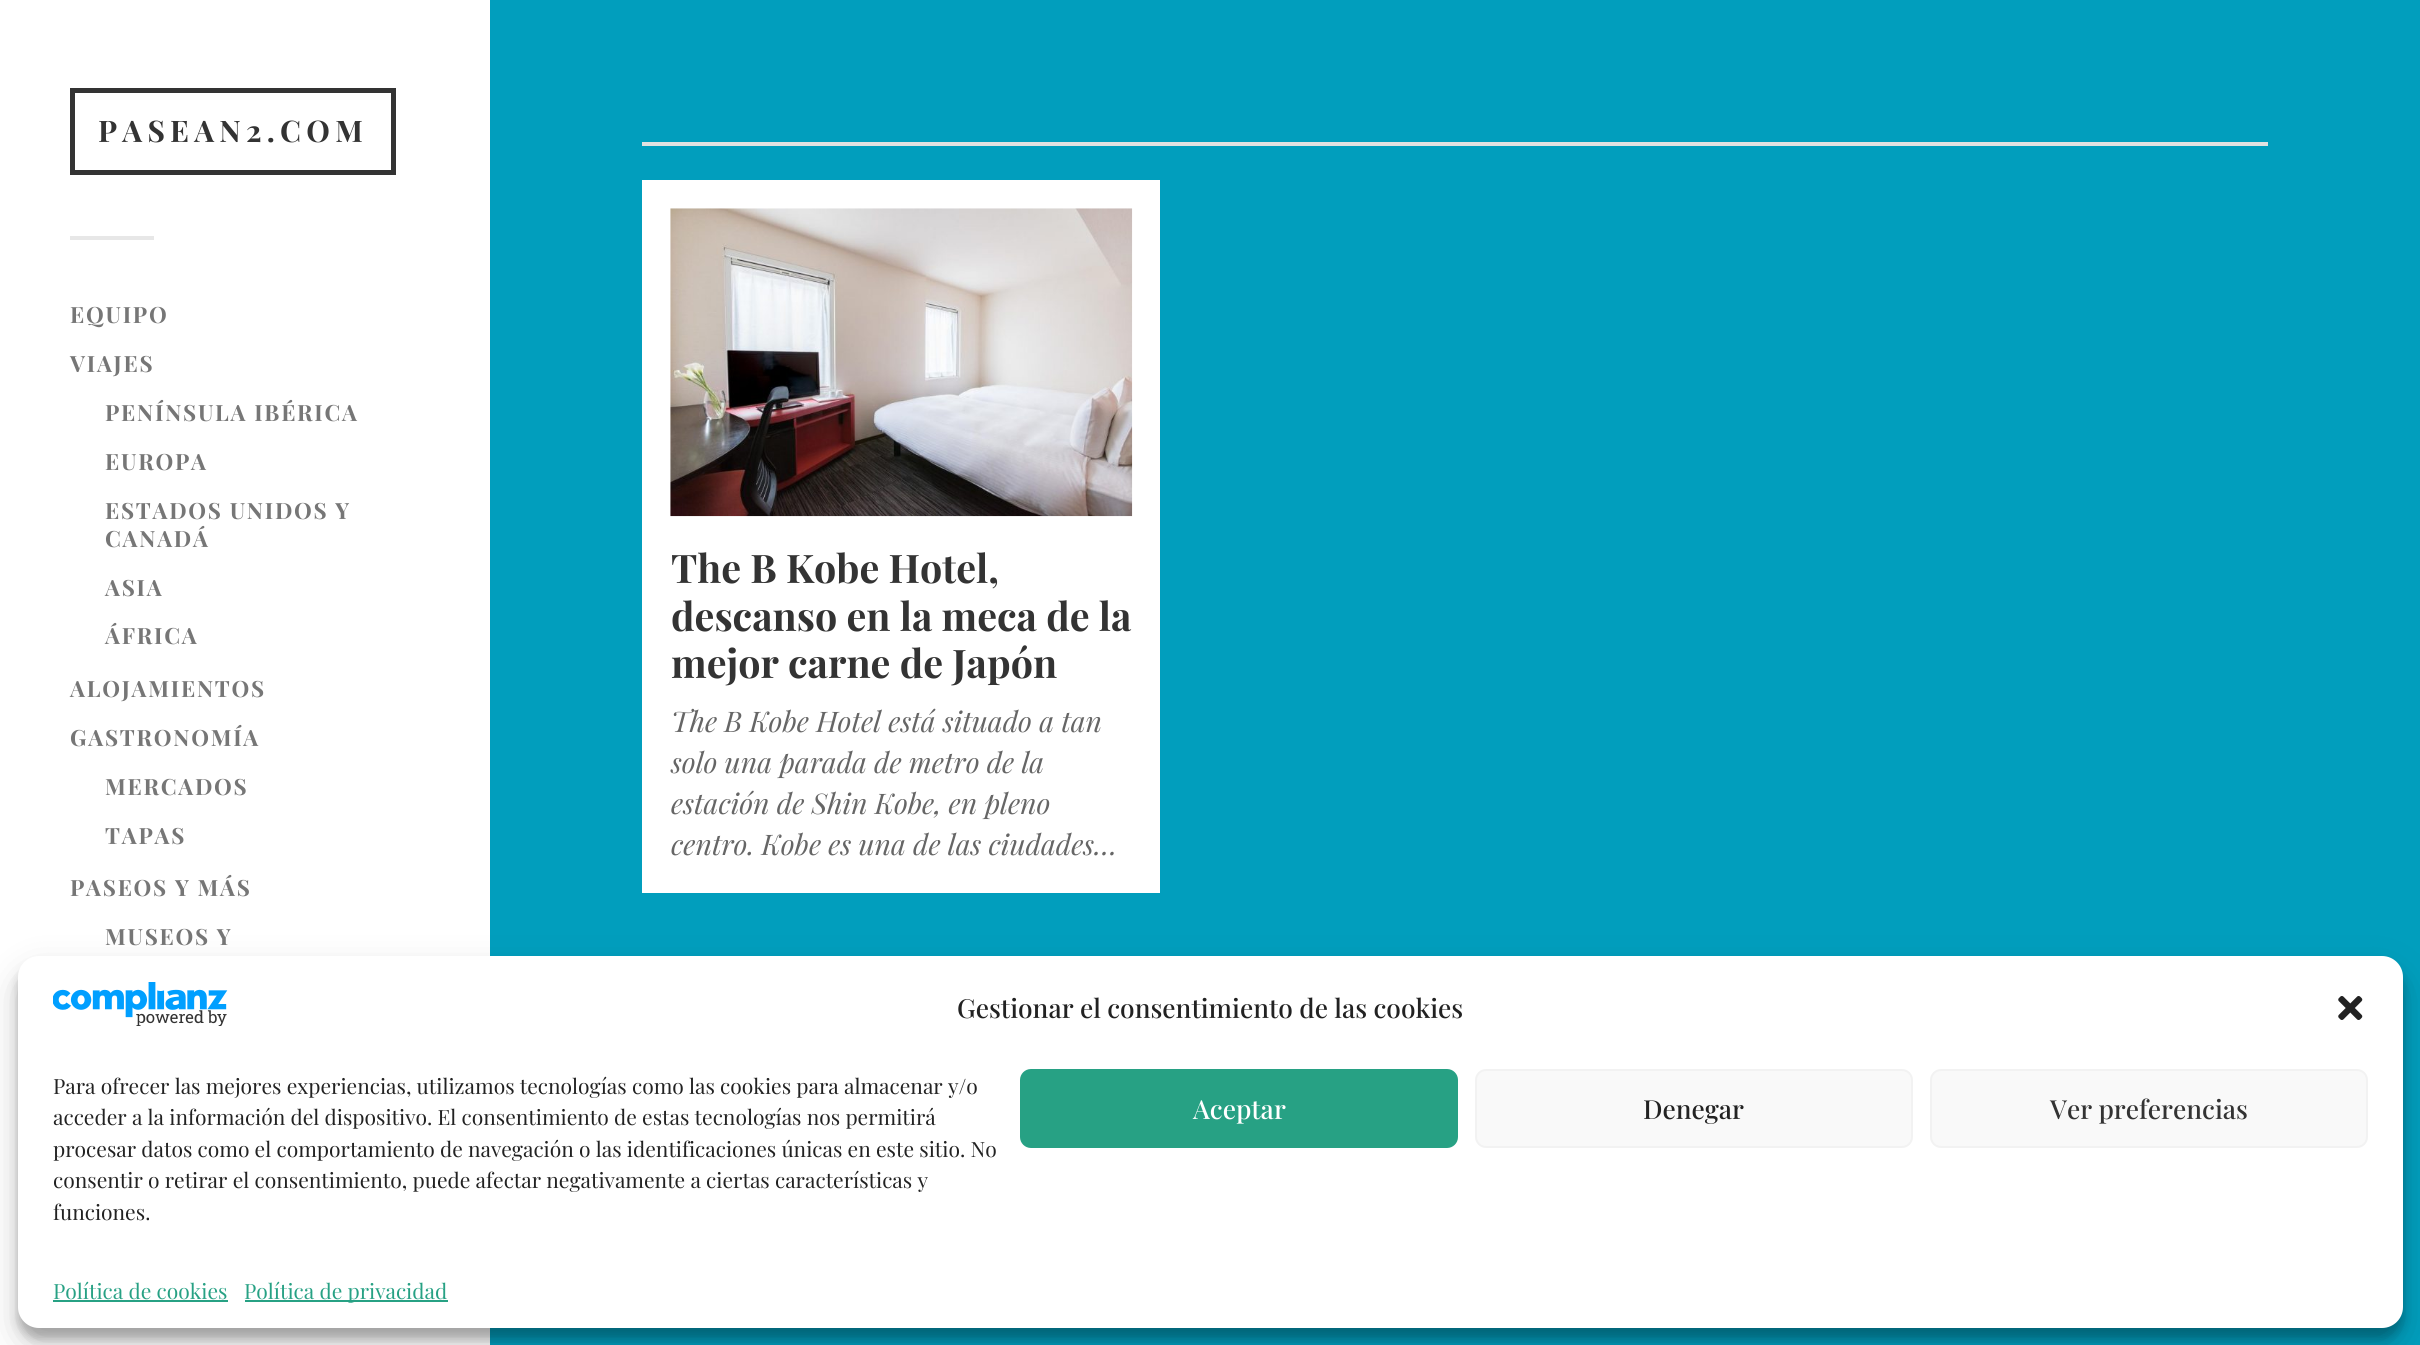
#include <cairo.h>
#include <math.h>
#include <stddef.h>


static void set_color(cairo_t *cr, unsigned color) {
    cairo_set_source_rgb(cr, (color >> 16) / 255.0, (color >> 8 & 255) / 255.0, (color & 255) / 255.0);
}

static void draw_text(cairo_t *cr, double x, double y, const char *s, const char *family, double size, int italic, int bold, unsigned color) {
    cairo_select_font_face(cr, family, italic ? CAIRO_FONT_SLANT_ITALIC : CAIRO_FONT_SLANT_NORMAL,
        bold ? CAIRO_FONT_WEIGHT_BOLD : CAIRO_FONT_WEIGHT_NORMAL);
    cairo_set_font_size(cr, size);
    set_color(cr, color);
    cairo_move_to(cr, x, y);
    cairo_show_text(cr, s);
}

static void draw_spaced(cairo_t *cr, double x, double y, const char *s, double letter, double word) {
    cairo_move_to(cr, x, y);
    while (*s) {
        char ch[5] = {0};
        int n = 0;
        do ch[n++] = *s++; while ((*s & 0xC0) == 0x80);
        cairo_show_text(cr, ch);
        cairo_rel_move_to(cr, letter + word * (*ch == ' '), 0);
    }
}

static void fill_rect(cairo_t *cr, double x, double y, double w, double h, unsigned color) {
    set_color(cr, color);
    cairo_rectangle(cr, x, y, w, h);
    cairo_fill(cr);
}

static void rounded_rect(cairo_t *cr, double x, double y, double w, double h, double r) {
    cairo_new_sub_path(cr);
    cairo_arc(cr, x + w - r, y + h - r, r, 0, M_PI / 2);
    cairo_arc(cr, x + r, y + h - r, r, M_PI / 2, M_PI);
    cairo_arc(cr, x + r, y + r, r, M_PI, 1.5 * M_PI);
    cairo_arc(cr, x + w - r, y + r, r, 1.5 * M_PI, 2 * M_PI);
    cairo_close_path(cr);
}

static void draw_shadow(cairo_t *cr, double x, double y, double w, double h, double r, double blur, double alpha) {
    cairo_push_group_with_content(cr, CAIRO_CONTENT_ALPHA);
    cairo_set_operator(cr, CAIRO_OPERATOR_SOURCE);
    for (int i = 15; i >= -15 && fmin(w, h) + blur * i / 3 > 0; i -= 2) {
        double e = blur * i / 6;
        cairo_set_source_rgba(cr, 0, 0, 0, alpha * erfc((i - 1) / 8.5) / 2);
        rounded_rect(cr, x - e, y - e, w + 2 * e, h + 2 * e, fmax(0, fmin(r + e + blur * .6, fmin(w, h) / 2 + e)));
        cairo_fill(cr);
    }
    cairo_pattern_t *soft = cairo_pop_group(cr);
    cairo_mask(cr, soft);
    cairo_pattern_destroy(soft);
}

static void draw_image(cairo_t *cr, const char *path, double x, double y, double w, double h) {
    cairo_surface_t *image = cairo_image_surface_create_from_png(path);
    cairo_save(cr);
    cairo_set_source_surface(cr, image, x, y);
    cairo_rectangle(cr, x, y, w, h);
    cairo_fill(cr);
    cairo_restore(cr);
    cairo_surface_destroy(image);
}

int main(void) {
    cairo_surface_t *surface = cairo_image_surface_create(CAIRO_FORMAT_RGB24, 2420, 1345);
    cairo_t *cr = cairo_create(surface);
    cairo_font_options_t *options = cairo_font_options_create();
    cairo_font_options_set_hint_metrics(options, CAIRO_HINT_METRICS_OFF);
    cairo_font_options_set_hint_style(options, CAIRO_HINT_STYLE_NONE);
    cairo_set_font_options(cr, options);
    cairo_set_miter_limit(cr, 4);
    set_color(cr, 0x019EBD);
    cairo_paint(cr);
    fill_rect(cr, 0, 0, 490, 1345, 0xFFFFFF);
    cairo_rectangle(cr, 72.5, 90.5, 321, 82);
    set_color(cr, 0x333333);
    cairo_set_line_width(cr, 5);
    cairo_stroke(cr);
    cairo_select_font_face(cr, "Playfair Display", CAIRO_FONT_SLANT_NORMAL, CAIRO_FONT_WEIGHT_BOLD);
    cairo_set_font_size(cr, 29.75);
    draw_spaced(cr, 98, 142, "PASEAN2.COM", 5.25, 0);
    fill_rect(cr, 70, 236, 84, 4, 0xE7E7E7);
    cairo_set_font_size(cr, 22.4);
    set_color(cr, 0x767676);
    draw_spaced(cr, 70, 323, "EQUIPO", 1.75, 0);
    draw_spaced(cr, 70, 372, "VIAJES", 1.75, 0);
    draw_spaced(cr, 105, 421, "PENÍNSULA IBÉRICA", 1.75, 0);
    draw_spaced(cr, 105, 470, "EUROPA", 1.75, 0);
    draw_spaced(cr, 105, 519, "ESTADOS UNIDOS Y", 1.75, 0);
    draw_spaced(cr, 105, 547, "CANADÁ", 1.75, 0);
    draw_spaced(cr, 105, 596, "ASIA", 1.75, 0);
    draw_spaced(cr, 105, 644, "ÁFRICA", 1.75, 0);
    draw_spaced(cr, 70, 697, "ALOJAMIENTOS", 1.75, 0);
    draw_spaced(cr, 70, 746, "GASTRONOMÍA", 1.75, 0);
    draw_spaced(cr, 105, 795, "MERCADOS", 1.75, 0);
    draw_spaced(cr, 105, 844, "TAPAS", 1.75, 0);
    draw_spaced(cr, 70, 896, "PASEOS Y MÁS", 1.75, 0);
    draw_spaced(cr, 105, 945, "MUSEOS Y", 1.75, 0);
    fill_rect(cr, 642, 142, 1626, 4, 0xE1E1E1);
    fill_rect(cr, 642, 180, 518, 713, 0xFFFFFF);
    draw_image(cr, "assets/img1.png", 670, 208, 463, 309);
    draw_text(cr, 671, 583, "The B Kobe Hotel,", "Playfair Display", 39.4, 0, 1, 0x333333);
    draw_text(cr, 671, 631, "descanso en la meca de la", "Playfair Display", 39.4, 0, 1, 0x333333);
    draw_text(cr, 671, 678, "mejor carne de Japón", "Playfair Display", 39.4, 0, 1, 0x333333);
    draw_text(cr, 671, 732, "The B Kobe Hotel está situado a tan", "Playfair Display", 28.4, 1, 0, 0x666666);
    draw_text(cr, 671, 773, "solo una parada de metro de la", "Playfair Display", 28.4, 1, 0, 0x666666);
    draw_text(cr, 671, 814, "estación de Shin Kobe, en pleno", "Playfair Display", 28.4, 1, 0, 0x666666);
    draw_text(cr, 671, 855, "centro. Kobe es una de las ciudades…", "Playfair Display", 28.4, 1, 0, 0x666666);
    set_color(cr, 0x000000);
    draw_shadow(cr, 18, 966, 2385, 373, 21, 5, 0.23);
    draw_shadow(cr, 18, 973, 2385, 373, 21, 17.5, 0.19);
    set_color(cr, 0xFFFFFF);
    rounded_rect(cr, 18, 956, 2385, 372, 21);
    cairo_fill(cr);
    draw_image(cr, "assets/img2.png", 53, 982, 175, 44);
    draw_text(cr, 957, 1018, "Gestionar el consentimiento de las cookies", "Playfair Display Medium", 26.25, 0, 0, 0x222222);
    draw_image(cr, "assets/img3.png", 2338, 996, 25, 24);
    draw_text(cr, 53, 1094, "Para ofrecer las mejores experiencias, utilizamos tecnologías como las cookies para almacenar y/o", "Playfair Display", 21, 0, 0, 0x222222);
    draw_text(cr, 53, 1125, "acceder a la información del dispositivo. El consentimiento de estas tecnologías nos permitirá", "Playfair Display", 21, 0, 0, 0x222222);
    draw_text(cr, 53, 1157, "procesar datos como el comportamiento de navegación o las identificaciones únicas en este sitio. No", "Playfair Display", 21, 0, 0, 0x222222);
    draw_text(cr, 53, 1188, "consentir o retirar el consentimiento, puede afectar negativamente a ciertas características y", "Playfair Display", 21, 0, 0, 0x222222);
    draw_text(cr, 53, 1220, "funciones.", "Playfair Display", 21, 0, 0, 0x222222);
    set_color(cr, 0x27A184);
    rounded_rect(cr, 1021, 1070, 436, 77, 10);
    cairo_fill_preserve(cr);
    cairo_set_line_width(cr, 2);
    cairo_stroke(cr);
    draw_text(cr, 1193, 1119, "Aceptar", "Playfair Display Medium", 26.25, 0, 0, 0xFFFFFF);
    set_color(cr, 0xF9F9F9);
    rounded_rect(cr, 1476, 1070, 436, 77, 10);
    cairo_fill_preserve(cr);
    set_color(cr, 0xF2F2F2);
    cairo_stroke(cr);
    draw_text(cr, 1643, 1119, "Denegar", "Playfair Display Medium", 26.25, 0, 0, 0x222222);
    set_color(cr, 0xF9F9F9);
    rounded_rect(cr, 1931, 1070, 436, 77, 10);
    cairo_fill_preserve(cr);
    set_color(cr, 0xF2F2F2);
    cairo_stroke(cr);
    draw_text(cr, 2050, 1119, "Ver preferencias", "Playfair Display Medium", 26.25, 0, 0, 0x333333);
    draw_text(cr, 53, 1299, "Política de cookies", "Playfair Display", 21, 0, 0, 0x27A184);
    fill_rect(cr, 53, 1300, 175, 2, 0x27A184);
    fill_rect(cr, 245, 1300, 203, 2, 0x27A184);
    draw_text(cr, 244, 1299, "Política de privacidad", "Playfair Display", 21, 0, 0, 0x27A184);
    cairo_surface_write_to_png(surface, "output.png");
    cairo_font_options_destroy(options);
    cairo_destroy(cr);
    cairo_surface_destroy(surface);
    return 0;
}
